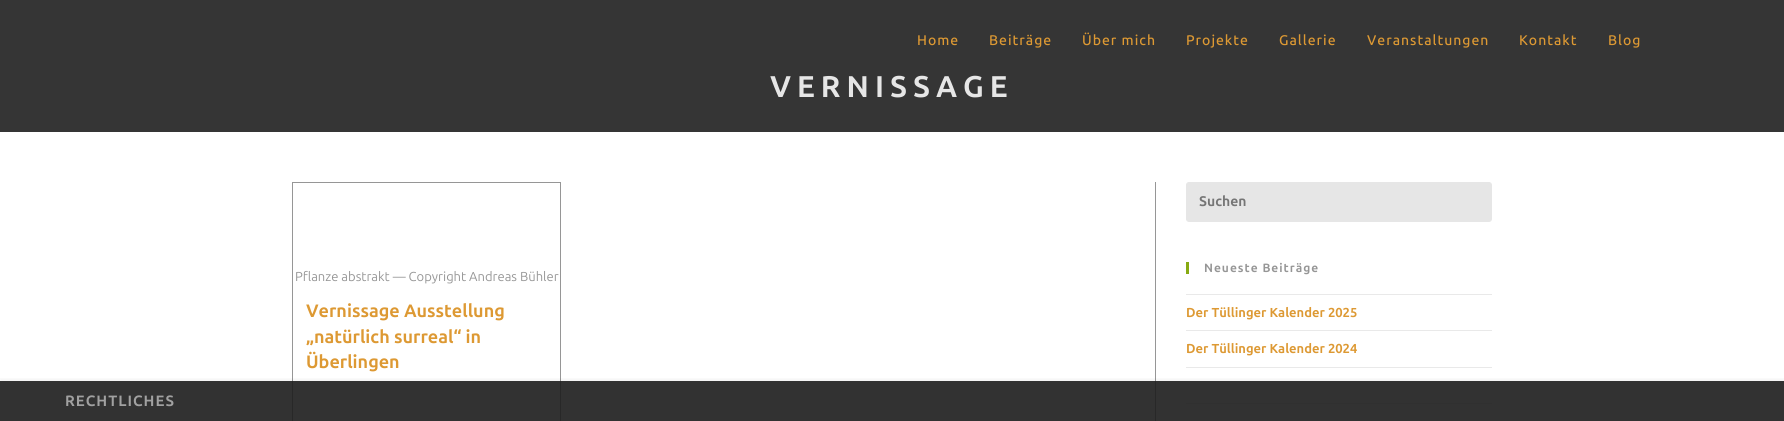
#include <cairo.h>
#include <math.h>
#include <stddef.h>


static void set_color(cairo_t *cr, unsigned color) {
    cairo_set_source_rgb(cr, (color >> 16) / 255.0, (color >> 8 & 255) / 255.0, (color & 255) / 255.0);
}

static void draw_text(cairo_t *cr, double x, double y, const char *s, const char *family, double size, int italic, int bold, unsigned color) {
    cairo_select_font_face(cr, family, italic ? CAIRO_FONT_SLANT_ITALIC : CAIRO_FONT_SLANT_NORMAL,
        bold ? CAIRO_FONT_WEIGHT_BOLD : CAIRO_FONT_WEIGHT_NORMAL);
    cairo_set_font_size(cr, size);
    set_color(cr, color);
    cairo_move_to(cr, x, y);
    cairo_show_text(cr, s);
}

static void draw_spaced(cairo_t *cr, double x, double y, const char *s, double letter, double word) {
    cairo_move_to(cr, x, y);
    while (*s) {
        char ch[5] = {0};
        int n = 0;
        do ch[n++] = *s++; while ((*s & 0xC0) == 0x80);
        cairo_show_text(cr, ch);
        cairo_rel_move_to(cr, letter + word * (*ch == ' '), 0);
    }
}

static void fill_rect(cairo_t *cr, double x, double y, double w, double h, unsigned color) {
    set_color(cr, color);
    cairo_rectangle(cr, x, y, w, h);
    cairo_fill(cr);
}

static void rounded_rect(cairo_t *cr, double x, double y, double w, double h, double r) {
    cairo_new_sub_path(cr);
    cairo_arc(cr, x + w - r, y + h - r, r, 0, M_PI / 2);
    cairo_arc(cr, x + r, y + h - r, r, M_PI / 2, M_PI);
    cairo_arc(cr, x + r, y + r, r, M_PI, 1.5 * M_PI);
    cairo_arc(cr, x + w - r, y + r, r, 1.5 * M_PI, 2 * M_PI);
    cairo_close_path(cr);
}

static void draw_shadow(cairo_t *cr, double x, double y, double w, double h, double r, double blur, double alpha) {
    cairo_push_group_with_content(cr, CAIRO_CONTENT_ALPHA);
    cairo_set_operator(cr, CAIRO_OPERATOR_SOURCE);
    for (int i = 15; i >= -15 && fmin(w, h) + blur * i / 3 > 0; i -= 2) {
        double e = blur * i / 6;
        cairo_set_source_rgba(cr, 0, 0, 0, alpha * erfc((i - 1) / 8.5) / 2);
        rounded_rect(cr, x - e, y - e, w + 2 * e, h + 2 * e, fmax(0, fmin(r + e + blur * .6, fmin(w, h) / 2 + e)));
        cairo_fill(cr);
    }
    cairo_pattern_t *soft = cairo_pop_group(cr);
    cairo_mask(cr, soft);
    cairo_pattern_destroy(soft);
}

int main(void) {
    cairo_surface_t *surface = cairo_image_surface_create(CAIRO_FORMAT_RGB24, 1784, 421);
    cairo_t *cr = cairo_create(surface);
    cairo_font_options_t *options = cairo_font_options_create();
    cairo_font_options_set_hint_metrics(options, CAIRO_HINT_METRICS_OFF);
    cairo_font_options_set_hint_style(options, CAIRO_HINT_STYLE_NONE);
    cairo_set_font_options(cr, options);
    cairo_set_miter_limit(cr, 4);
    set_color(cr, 0xFFFFFF);
    cairo_paint(cr);
    fill_rect(cr, 0, 0, 1784, 132, 0x353535);
    cairo_select_font_face(cr, "Ubuntu Medium", CAIRO_FONT_SLANT_NORMAL, CAIRO_FONT_WEIGHT_NORMAL);
    cairo_set_font_size(cr, 14);
    set_color(cr, 0xDD9933);
    draw_spaced(cr, 917, 45, "Home", 1, 0);
    draw_spaced(cr, 989, 45, "Beiträge", 1, 0);
    draw_spaced(cr, 1082, 45, "Über mich", 1, 0);
    draw_spaced(cr, 1186, 45, "Projekte", 1, 0);
    draw_spaced(cr, 1279, 45, "Gallerie", 1, 0);
    draw_spaced(cr, 1367, 45, "Veranstaltungen", 1, 0);
    draw_spaced(cr, 1519, 45, "Kontakt", 1, 0);
    draw_spaced(cr, 1608, 45, "Blog", 1, 0);
    cairo_select_font_face(cr, "Ubuntu", CAIRO_FONT_SLANT_NORMAL, CAIRO_FONT_WEIGHT_BOLD);
    cairo_set_font_size(cr, 30);
    set_color(cr, 0xE6E6E6);
    draw_spaced(cr, 770, 97, "VERNISSAGE", 6, 0);
    fill_rect(cr, 1155, 182, 1, 239, 0x969696);
    cairo_rectangle(cr, 292.5, 182.5, 268, 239);
    cairo_set_line_width(cr, 1);
    cairo_stroke(cr);
    draw_text(cr, 295, 281, "Pflanze abstrakt — Copyright Andreas Bühler", "Ubuntu", 13, 0, 0, 0x969696);
    draw_text(cr, 306, 317, "Vernissage Ausstellung", "Ubuntu", 18, 0, 1, 0xDD9933);
    draw_text(cr, 306, 343, "„natürlich surreal“ in", "Ubuntu", 18, 0, 1, 0xDD9933);
    draw_text(cr, 306, 368, "Überlingen", "Ubuntu", 18, 0, 1, 0xDD9933);
    set_color(cr, 0xE6E6E6);
    rounded_rect(cr, 1186.5, 182.5, 305, 39, 2.5);
    cairo_fill_preserve(cr);
    cairo_stroke(cr);
    draw_text(cr, 1199, 206, "Suchen", "Ubuntu", 14, 0, 1, 0x757575);
    fill_rect(cr, 1186, 262, 3, 12, 0x87AA12);
    cairo_set_font_size(cr, 12);
    set_color(cr, 0x969696);
    draw_spaced(cr, 1204, 272, "Neueste Beiträge", 1, 0);
    fill_rect(cr, 1186, 294, 306, 1, 0xE9E9E9);
    fill_rect(cr, 1186, 330, 306, 1, 0xE9E9E9);
    draw_text(cr, 1186, 317, "Der Tüllinger Kalender 2025", "Ubuntu", 13, 0, 1, 0xDD9933);
    fill_rect(cr, 1186, 367, 306, 1, 0xE9E9E9);
    draw_text(cr, 1186, 353, "Der Tüllinger Kalender 2024", "Ubuntu", 13, 0, 1, 0xDD9933);
    fill_rect(cr, 1186, 403, 306, 1, 0xE9E9E9);
    cairo_save(cr);
    cairo_rectangle(cr, 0, 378, 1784, 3);
    cairo_clip(cr);
    set_color(cr, 0x000000);
    draw_shadow(cr, 0, 381, 1784, 40, 0, 4, 0.09);
    cairo_restore(cr);
    cairo_set_source_rgba(cr, 0.11, 0.11, 0.11, 0.9);
    cairo_rectangle(cr, 0, 381, 1784, 40);
    cairo_fill(cr);
    cairo_set_font_size(cr, 15);
    set_color(cr, 0xA1A1A1);
    draw_spaced(cr, 65, 406, "RECHTLICHES", 1, 0);
    cairo_surface_write_to_png(surface, "output.png");
    cairo_font_options_destroy(options);
    cairo_destroy(cr);
    cairo_surface_destroy(surface);
    return 0;
}
